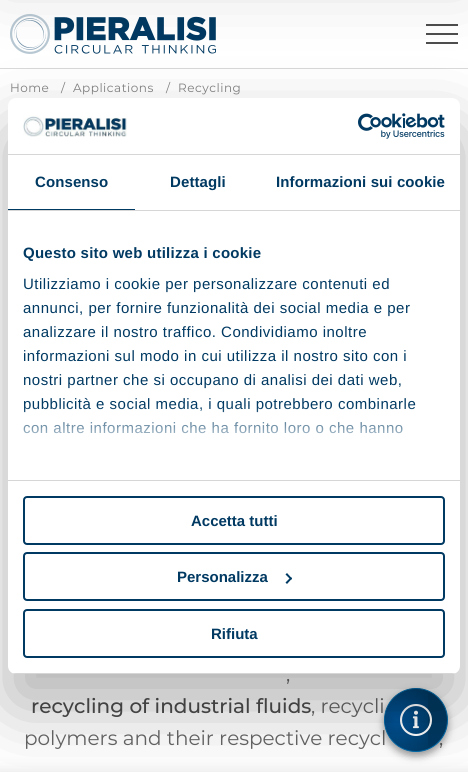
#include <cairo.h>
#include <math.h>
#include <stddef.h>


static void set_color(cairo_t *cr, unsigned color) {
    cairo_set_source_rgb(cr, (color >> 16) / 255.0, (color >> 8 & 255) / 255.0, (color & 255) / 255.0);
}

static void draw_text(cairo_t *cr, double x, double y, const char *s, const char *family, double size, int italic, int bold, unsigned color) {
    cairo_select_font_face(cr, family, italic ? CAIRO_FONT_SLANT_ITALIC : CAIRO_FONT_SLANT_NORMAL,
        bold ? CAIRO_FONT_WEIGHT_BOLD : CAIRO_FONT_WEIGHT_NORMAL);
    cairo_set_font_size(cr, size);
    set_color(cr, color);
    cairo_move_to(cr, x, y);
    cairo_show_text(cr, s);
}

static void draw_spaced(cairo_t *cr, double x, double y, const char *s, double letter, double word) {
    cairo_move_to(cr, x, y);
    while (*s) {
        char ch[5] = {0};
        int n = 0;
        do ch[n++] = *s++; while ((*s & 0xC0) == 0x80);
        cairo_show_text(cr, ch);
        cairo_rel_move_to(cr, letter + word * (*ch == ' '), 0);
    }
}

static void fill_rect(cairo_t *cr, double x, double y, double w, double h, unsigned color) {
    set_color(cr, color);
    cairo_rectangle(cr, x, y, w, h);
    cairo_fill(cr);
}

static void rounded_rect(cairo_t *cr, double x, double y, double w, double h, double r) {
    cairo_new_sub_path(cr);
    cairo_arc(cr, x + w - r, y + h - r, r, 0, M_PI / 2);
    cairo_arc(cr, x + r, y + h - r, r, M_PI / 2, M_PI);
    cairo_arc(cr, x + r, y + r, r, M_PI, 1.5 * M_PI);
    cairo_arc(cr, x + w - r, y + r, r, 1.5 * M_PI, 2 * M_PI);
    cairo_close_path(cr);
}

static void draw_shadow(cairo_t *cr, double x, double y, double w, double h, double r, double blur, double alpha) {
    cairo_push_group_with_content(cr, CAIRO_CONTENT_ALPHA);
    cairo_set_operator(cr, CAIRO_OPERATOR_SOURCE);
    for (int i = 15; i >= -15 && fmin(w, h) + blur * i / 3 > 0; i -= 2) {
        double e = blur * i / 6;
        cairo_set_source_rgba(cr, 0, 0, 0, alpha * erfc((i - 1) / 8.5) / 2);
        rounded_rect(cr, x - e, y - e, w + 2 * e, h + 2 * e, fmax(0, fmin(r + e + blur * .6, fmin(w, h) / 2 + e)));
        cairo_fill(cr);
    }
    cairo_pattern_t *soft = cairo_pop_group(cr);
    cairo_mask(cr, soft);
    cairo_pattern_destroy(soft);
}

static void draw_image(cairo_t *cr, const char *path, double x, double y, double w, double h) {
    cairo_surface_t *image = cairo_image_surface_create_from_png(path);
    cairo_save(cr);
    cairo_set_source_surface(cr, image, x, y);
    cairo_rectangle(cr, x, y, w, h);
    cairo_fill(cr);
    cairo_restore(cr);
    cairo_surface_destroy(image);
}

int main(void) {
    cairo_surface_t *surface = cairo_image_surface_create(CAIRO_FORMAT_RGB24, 468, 772);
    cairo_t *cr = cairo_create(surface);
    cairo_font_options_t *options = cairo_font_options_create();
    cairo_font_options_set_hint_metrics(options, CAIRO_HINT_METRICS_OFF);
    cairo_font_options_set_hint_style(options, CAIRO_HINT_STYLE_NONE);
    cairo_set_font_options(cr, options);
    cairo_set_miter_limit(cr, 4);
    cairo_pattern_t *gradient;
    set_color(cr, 0xFFFFFF);
    cairo_paint(cr);
    cairo_save(cr);
    cairo_rectangle(cr, 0, 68, 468, 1);
    cairo_clip(cr);
    set_color(cr, 0x666666);
    draw_shadow(cr, 0, 0, 468, 68, 0, 0.5, 1);
    cairo_restore(cr);
    draw_image(cr, "assets/img1.png", 10, 14, 206, 40);
    fill_rect(cr, 426, 33, 32, 2, 0x4D4D4D);
    fill_rect(cr, 426, 24, 32, 2, 0x4D4D4D);
    fill_rect(cr, 426, 42, 32, 2, 0x4D4D4D);
    set_color(cr, 0x000000);
    draw_shadow(cr, 0, -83, 468, 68, 0, 36, 0.15);
    cairo_select_font_face(cr, "Montserrat", CAIRO_FONT_SLANT_NORMAL, CAIRO_FONT_WEIGHT_NORMAL);
    cairo_set_font_size(cr, 12);
    set_color(cr, 0x828282);
    draw_spaced(cr, 10, 92, "Home", 0.5, 0);
    draw_spaced(cr, 61, 92, "/", 0.5, 0);
    draw_spaced(cr, 73, 92, "Applications", 0.5, 0);
    draw_spaced(cr, 166, 92, "/", 0.5, 0);
    draw_spaced(cr, 178, 92, "Recycling", 0.5, 0);
    draw_text(cr, 286, 681, ",", "Montserrat", 20, 0, 0, 0x666666);
    draw_text(cr, 31, 713, "recycling of industrial fluids", "Montserrat Medium", 20, 0, 0, 0x4D4D4D);
    draw_text(cr, 311, 713, ", recycli", "Montserrat", 20, 0, 0, 0x666666);
    draw_text(cr, 24, 745, "polymers and their respective recycl", "Montserrat", 20, 0, 0, 0x666666);
    draw_text(cr, 439, 745, ",", "Montserrat", 20, 0, 0, 0x666666);
    set_color(cr, 0x000000);
    draw_shadow(cr, 384, 692, 64, 64, 32, 4, 0.4);
    draw_shadow(cr, -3, 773, 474, 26, 0, 9, 0.12);
    set_color(cr, 0x003962);
    cairo_arc(cr, 416, 720, 31.5, 0, 2 * M_PI);
    cairo_fill_preserve(cr);
    set_color(cr, 0x006AAB);
    cairo_set_line_width(cr, 1);
    cairo_stroke(cr);
    cairo_save(cr);
    rounded_rect(cr, 385, 689, 62, 62, 31);
    cairo_clip(cr);
    gradient = cairo_pattern_create_radial(397, 720, 0, 397, 720, 44);
    cairo_pattern_add_color_stop_rgba(gradient, 0, 0, 0.329, 0.6, 1);
    cairo_pattern_add_color_stop_rgba(gradient, 1, 0, 0.329, 0.6, 0);
    cairo_set_source(cr, gradient);
    cairo_pattern_destroy(gradient);
    cairo_new_path(cr);
    cairo_move_to(cr, 416, 689);
    cairo_line_to(cr, 428, 689);
    cairo_line_to(cr, 428, 751);
    cairo_line_to(cr, 416, 751);
    cairo_curve_to(cr, 399, 751, 385, 737, 385, 720);
    cairo_curve_to(cr, 385, 703, 399, 689, 416, 689);
    cairo_close_path(cr);
    cairo_fill(cr);
    cairo_restore(cr);
    draw_image(cr, "assets/img2.png", 400, 704, 32, 32);
    set_color(cr, 0x000000);
    draw_shadow(cr, 8, 130, 452, 576, 8, 34, 0.3);
    set_color(cr, 0xFFFFFF);
    rounded_rect(cr, 8, 98, 452, 576, 8);
    cairo_fill(cr);
    fill_rect(cr, 8, 154, 452, 1, 0xD6D6D6);
    draw_image(cr, "assets/img3.png", 23, 115, 104, 22);
    draw_image(cr, "assets/img4.png", 358, 113, 87, 26);
    fill_rect(cr, 8, 210, 452, 1, 0xD6D6D6);
    fill_rect(cr, 8, 209, 127, 1, 0x003962);
    cairo_select_font_face(cr, "Liberation Sans", CAIRO_FONT_SLANT_NORMAL, CAIRO_FONT_WEIGHT_BOLD);
    cairo_set_font_size(cr, 15);
    draw_spaced(cr, 35, 187, "Consenso", 0.1, 0);
    draw_spaced(cr, 170, 187, "Dettagli", 0.1, 0);
    draw_spaced(cr, 276, 187, "Informazioni sui cookie", 0.1, 0);
    fill_rect(cr, 8, 480, 452, 1, 0xD6D6D6);
    set_color(cr, 0x003962);
    draw_spaced(cr, 23, 258, "Questo sito web utilizza i cookie", 0.25, 0);
    cairo_select_font_face(cr, "Liberation Sans", CAIRO_FONT_SLANT_NORMAL, CAIRO_FONT_WEIGHT_NORMAL);
    draw_spaced(cr, 23, 289, "Utilizziamo i cookie per personalizzare contenuti ed", 0.5, 0);
    draw_spaced(cr, 23, 313, "annunci, per fornire funzionalità dei social media e per", 0.5, 0);
    draw_spaced(cr, 23, 337, "analizzare il nostro traffico. Condividiamo inoltre", 0.5, 0);
    draw_spaced(cr, 23, 361, "informazioni sul modo in cui utilizza il nostro sito con i", 0.5, 0);
    draw_spaced(cr, 23, 385, "nostri partner che si occupano di analisi dei dati web,", 0.5, 0);
    draw_spaced(cr, 23, 409, "pubblicità e social media, i quali potrebbero combinarle", 0.5, 0);
    draw_spaced(cr, 23, 433, "con altre informazioni che ha fornito loro o che hanno", 0.5, 0);
    gradient = cairo_pattern_create_linear(228, 480, 228, 405);
    cairo_pattern_add_color_stop_rgba(gradient, 0, 1, 1, 1, 1);
    cairo_pattern_add_color_stop_rgba(gradient, 0.5, 1, 1, 1, 0.8);
    cairo_pattern_add_color_stop_rgba(gradient, 1, 1, 1, 1, 0);
    cairo_set_source(cr, gradient);
    cairo_pattern_destroy(gradient);
    cairo_rectangle(cr, 23, 406, 392, 28);
    cairo_fill(cr);
    cairo_save(cr);
    rounded_rect(cr, 8, 98, 452, 576, 8);
    cairo_clip(cr);
    fill_rect(cr, 8, 673, 452, 1, 0xD6D6D6);
    cairo_restore(cr);
    rounded_rect(cr, 24, 497, 420, 47, 3);
    set_color(cr, 0x003962);
    cairo_set_line_width(cr, 2);
    cairo_stroke(cr);
    draw_text(cr, 191, 526, "Accetta tutti", "Liberation Sans", 15, 0, 1, 0x003962);
    rounded_rect(cr, 24, 553, 420, 47, 3);
    cairo_stroke(cr);
    draw_text(cr, 177, 582, "Personalizza", "Liberation Sans", 15, 0, 1, 0x003962);
    cairo_new_path(cr);
    cairo_move_to(cr, 287, 573);
    cairo_line_to(cr, 292, 578.5);
    cairo_line_to(cr, 291, 580);
    cairo_line_to(cr, 285.5, 574.5);
    cairo_close_path(cr);
    cairo_fill(cr);
    cairo_new_path(cr);
    cairo_move_to(cr, 291, 577);
    cairo_line_to(cr, 292, 578.5);
    cairo_line_to(cr, 287, 584);
    cairo_line_to(cr, 285.5, 582.5);
    cairo_close_path(cr);
    cairo_fill(cr);
    rounded_rect(cr, 24, 610, 420, 47, 3);
    cairo_stroke(cr);
    draw_text(cr, 211, 639, "Rifiuta", "Liberation Sans", 15, 0, 1, 0x003962);
    cairo_surface_write_to_png(surface, "output.png");
    cairo_font_options_destroy(options);
    cairo_destroy(cr);
    cairo_surface_destroy(surface);
    return 0;
}
